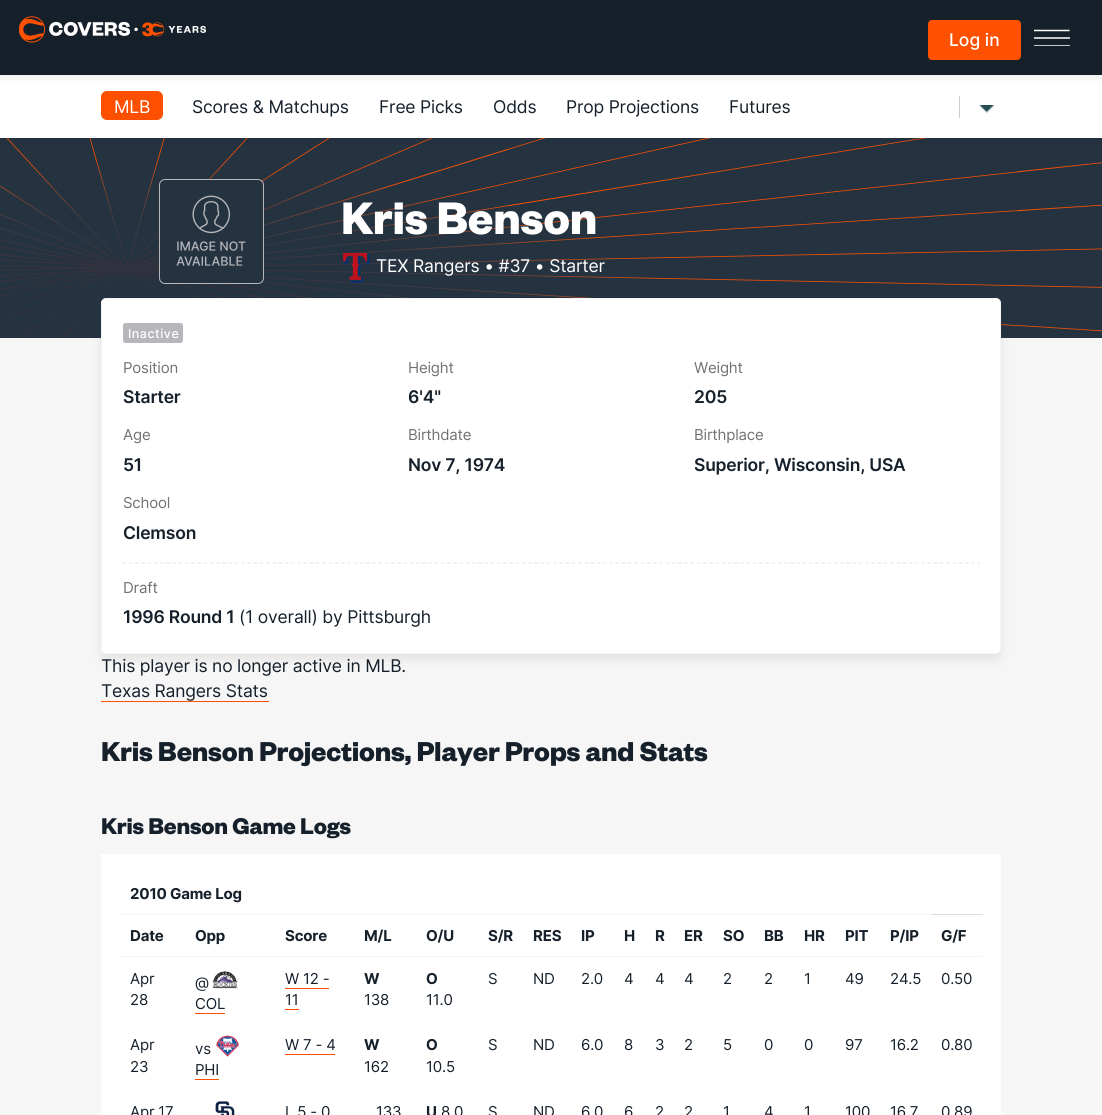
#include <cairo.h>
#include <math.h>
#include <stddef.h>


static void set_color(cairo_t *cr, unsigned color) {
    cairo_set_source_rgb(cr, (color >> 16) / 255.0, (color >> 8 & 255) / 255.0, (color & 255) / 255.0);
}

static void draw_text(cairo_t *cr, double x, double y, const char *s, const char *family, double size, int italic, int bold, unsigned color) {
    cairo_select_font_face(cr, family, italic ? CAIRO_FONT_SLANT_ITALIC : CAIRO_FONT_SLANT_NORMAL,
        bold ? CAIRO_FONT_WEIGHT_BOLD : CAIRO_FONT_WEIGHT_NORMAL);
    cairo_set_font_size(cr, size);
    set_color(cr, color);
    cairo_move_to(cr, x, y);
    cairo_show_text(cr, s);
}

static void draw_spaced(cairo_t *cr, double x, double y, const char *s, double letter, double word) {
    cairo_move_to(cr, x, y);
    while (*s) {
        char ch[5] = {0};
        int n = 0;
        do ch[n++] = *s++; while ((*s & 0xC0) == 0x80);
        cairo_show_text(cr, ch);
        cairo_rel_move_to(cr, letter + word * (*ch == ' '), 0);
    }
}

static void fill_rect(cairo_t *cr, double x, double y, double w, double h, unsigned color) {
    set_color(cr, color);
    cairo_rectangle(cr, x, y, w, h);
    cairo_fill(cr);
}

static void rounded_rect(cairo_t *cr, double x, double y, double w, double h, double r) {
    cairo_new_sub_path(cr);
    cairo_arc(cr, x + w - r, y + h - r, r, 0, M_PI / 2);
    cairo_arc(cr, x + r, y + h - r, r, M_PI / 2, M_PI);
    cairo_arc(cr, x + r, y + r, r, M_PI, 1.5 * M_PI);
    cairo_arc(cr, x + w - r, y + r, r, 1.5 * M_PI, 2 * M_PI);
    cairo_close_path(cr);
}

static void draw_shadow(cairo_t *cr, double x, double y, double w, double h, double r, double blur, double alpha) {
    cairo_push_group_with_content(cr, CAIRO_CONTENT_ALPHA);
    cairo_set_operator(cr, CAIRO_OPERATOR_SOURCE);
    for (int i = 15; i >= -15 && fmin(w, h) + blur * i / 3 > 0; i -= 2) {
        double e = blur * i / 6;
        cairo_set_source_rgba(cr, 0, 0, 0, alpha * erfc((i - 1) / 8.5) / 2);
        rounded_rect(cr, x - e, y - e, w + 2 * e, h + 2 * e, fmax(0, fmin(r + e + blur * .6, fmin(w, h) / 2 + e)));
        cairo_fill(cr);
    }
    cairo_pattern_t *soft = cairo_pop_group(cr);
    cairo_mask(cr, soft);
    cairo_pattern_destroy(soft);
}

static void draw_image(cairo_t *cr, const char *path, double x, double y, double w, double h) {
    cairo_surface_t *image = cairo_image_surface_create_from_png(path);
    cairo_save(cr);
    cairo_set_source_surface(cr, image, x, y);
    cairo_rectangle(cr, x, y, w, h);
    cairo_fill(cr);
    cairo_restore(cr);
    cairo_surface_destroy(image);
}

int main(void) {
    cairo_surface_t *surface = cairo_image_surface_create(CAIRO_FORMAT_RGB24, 1102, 1115);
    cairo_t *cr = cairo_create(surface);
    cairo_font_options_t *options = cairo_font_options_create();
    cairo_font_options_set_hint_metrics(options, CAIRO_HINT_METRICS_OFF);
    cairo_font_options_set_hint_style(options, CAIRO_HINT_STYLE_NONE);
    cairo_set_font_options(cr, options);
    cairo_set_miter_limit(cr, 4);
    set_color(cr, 0xF6F6F6);
    cairo_paint(cr);
    fill_rect(cr, 0, 138, 1102, 200, 0x253341);
    draw_image(cr, "assets/img3.png", 0, 138, 1102, 200);
    set_color(cr, 0x000000);
    draw_shadow(cr, 0, 80, 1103, 63, 0, 2.5, 0.05);
    fill_rect(cr, 0, 75, 1102, 63, 0xFFFFFF);
    set_color(cr, 0x000000);
    draw_shadow(cr, 0, 5, 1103, 75, 0, 2.5, 0.05);
    fill_rect(cr, 0, 0, 1102, 75, 0x15202B);
    draw_image(cr, "assets/img1.png", 19, 16, 187, 27);
    set_color(cr, 0xFD5000);
    rounded_rect(cr, 928, 20, 93, 40, 4);
    cairo_fill(cr);
    draw_text(cr, 949, 46, "Log in", "Inter Medium", 17.5, 0, 0, 0xFFFFFF);
    cairo_new_path(cr);
    cairo_move_to(cr, 1034, 30.5);
    cairo_line_to(cr, 1069.5, 30.5);
    cairo_set_line_width(cr, 1.5);
    cairo_stroke(cr);
    fill_rect(cr, 1034, 37, 36, 2, 0xC5C7CA);
    fill_rect(cr, 1034, 45, 36, 1, 0xC5C7CA);
    set_color(cr, 0xFD4F00);
    rounded_rect(cr, 101, 91, 62, 29, 6);
    cairo_fill(cr);
    cairo_select_font_face(cr, "Inter", CAIRO_FONT_SLANT_NORMAL, CAIRO_FONT_WEIGHT_NORMAL);
    set_color(cr, 0xFFFFFF);
    draw_spaced(cr, 114, 113, "MLB", -0.2, 0);
    set_color(cr, 0x15202B);
    draw_spaced(cr, 192, 113, "Scores & Matchups", -0.2, 0);
    draw_spaced(cr, 379, 113, "Free Picks", -0.2, 0);
    draw_spaced(cr, 493, 113, "Odds", -0.2, 0);
    draw_spaced(cr, 566, 113, "Prop Projections", -0.2, 0);
    draw_spaced(cr, 729, 113, "Futures", -0.2, 0);
    fill_rect(cr, 959, 96, 1, 22, 0xCCCCCC);
    draw_image(cr, "assets/img2.png", 979, 105, 15, 8);
    draw_image(cr, "assets/img4.png", 159, 179, 105, 105);
    cairo_select_font_face(cr, "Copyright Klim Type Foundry", CAIRO_FONT_SLANT_NORMAL, CAIRO_FONT_WEIGHT_BOLD);
    cairo_set_font_size(cr, 50);
    set_color(cr, 0xFFFFFF);
    draw_spaced(cr, 341, 234, "Kris Benson", -0.2, 0);
    draw_image(cr, "assets/img5.png", 343, 253, 27, 30);
    cairo_select_font_face(cr, "Inter", CAIRO_FONT_SLANT_NORMAL, CAIRO_FONT_WEIGHT_NORMAL);
    cairo_set_font_size(cr, 17.5);
    draw_spaced(cr, 376, 272, "TEX Rangers • #37 • Starter", -0.2, 0);
    set_color(cr, 0x21252D);
    draw_shadow(cr, 101, 303, 900, 356, 5, 5, 0.1);
    set_color(cr, 0xFFFFFF);
    rounded_rect(cr, 101.5, 298.5, 899, 355, 4.5);
    cairo_fill_preserve(cr);
    set_color(cr, 0xF6F6F6);
    cairo_set_line_width(cr, 1);
    cairo_stroke(cr);
    set_color(cr, 0xB6B7BB);
    rounded_rect(cr, 123, 323, 60, 20, 2.5);
    cairo_fill(cr);
    cairo_select_font_face(cr, "Inter Medium", CAIRO_FONT_SLANT_NORMAL, CAIRO_FONT_WEIGHT_NORMAL);
    cairo_set_font_size(cr, 12.5);
    set_color(cr, 0xFFFFFF);
    draw_spaced(cr, 128, 338, "Inactive", 0.5, 0);
    cairo_select_font_face(cr, "Inter", CAIRO_FONT_SLANT_NORMAL, CAIRO_FONT_WEIGHT_NORMAL);
    cairo_set_font_size(cr, 15);
    set_color(cr, 0x727272);
    draw_spaced(cr, 123, 373, "Position", -0.2, 0);
    cairo_select_font_face(cr, "Inter SemiBold", CAIRO_FONT_SLANT_NORMAL, CAIRO_FONT_WEIGHT_NORMAL);
    cairo_set_font_size(cr, 17.5);
    set_color(cr, 0x15202B);
    draw_spaced(cr, 123, 403, "Starter", -0.2, 0);
    cairo_select_font_face(cr, "Inter", CAIRO_FONT_SLANT_NORMAL, CAIRO_FONT_WEIGHT_NORMAL);
    cairo_set_font_size(cr, 15);
    set_color(cr, 0x727272);
    draw_spaced(cr, 408, 373, "Height", -0.2, 0);
    cairo_select_font_face(cr, "Inter SemiBold", CAIRO_FONT_SLANT_NORMAL, CAIRO_FONT_WEIGHT_NORMAL);
    cairo_set_font_size(cr, 17.5);
    set_color(cr, 0x15202B);
    draw_spaced(cr, 408, 403, "6'4\"", -0.2, 0);
    cairo_select_font_face(cr, "Inter", CAIRO_FONT_SLANT_NORMAL, CAIRO_FONT_WEIGHT_NORMAL);
    cairo_set_font_size(cr, 15);
    set_color(cr, 0x727272);
    draw_spaced(cr, 694, 373, "Weight", -0.2, 0);
    cairo_select_font_face(cr, "Inter SemiBold", CAIRO_FONT_SLANT_NORMAL, CAIRO_FONT_WEIGHT_NORMAL);
    cairo_set_font_size(cr, 17.5);
    set_color(cr, 0x15202B);
    draw_spaced(cr, 694, 403, "205", -0.2, 0);
    cairo_select_font_face(cr, "Inter", CAIRO_FONT_SLANT_NORMAL, CAIRO_FONT_WEIGHT_NORMAL);
    cairo_set_font_size(cr, 15);
    set_color(cr, 0x727272);
    draw_spaced(cr, 123, 440, "Age", -0.2, 0);
    cairo_select_font_face(cr, "Inter SemiBold", CAIRO_FONT_SLANT_NORMAL, CAIRO_FONT_WEIGHT_NORMAL);
    cairo_set_font_size(cr, 17.5);
    set_color(cr, 0x15202B);
    draw_spaced(cr, 123, 471, "51", -0.2, 0);
    cairo_select_font_face(cr, "Inter", CAIRO_FONT_SLANT_NORMAL, CAIRO_FONT_WEIGHT_NORMAL);
    cairo_set_font_size(cr, 15);
    set_color(cr, 0x727272);
    draw_spaced(cr, 408, 440, "Birthdate", -0.2, 0);
    cairo_select_font_face(cr, "Inter SemiBold", CAIRO_FONT_SLANT_NORMAL, CAIRO_FONT_WEIGHT_NORMAL);
    cairo_set_font_size(cr, 17.5);
    set_color(cr, 0x15202B);
    draw_spaced(cr, 408, 471, "Nov 7, 1974", -0.2, 0);
    cairo_select_font_face(cr, "Inter", CAIRO_FONT_SLANT_NORMAL, CAIRO_FONT_WEIGHT_NORMAL);
    cairo_set_font_size(cr, 15);
    set_color(cr, 0x727272);
    draw_spaced(cr, 694, 440, "Birthplace", -0.2, 0);
    cairo_select_font_face(cr, "Inter SemiBold", CAIRO_FONT_SLANT_NORMAL, CAIRO_FONT_WEIGHT_NORMAL);
    cairo_set_font_size(cr, 17.5);
    set_color(cr, 0x15202B);
    draw_spaced(cr, 694, 471, "Superior, Wisconsin, USA", -0.2, 0);
    cairo_select_font_face(cr, "Inter", CAIRO_FONT_SLANT_NORMAL, CAIRO_FONT_WEIGHT_NORMAL);
    cairo_set_font_size(cr, 15);
    set_color(cr, 0x727272);
    draw_spaced(cr, 123, 508, "School", -0.2, 0);
    cairo_select_font_face(cr, "Inter SemiBold", CAIRO_FONT_SLANT_NORMAL, CAIRO_FONT_WEIGHT_NORMAL);
    cairo_set_font_size(cr, 17.5);
    set_color(cr, 0x15202B);
    draw_spaced(cr, 123, 539, "Clemson", -0.2, 0);
    cairo_new_path(cr);
    cairo_move_to(cr, 122.5, 563);
    cairo_line_to(cr, 980, 563);
    set_color(cr, 0xEAEAED);
    cairo_set_line_width(cr, 1.2);
    cairo_set_dash(cr, (double[]){3.75, 2.49}, 2, 0);
    cairo_stroke(cr);
    cairo_select_font_face(cr, "Inter", CAIRO_FONT_SLANT_NORMAL, CAIRO_FONT_WEIGHT_NORMAL);
    cairo_set_font_size(cr, 15);
    set_color(cr, 0x727272);
    draw_spaced(cr, 123, 593, "Draft", -0.2, 0);
    cairo_select_font_face(cr, "Inter SemiBold", CAIRO_FONT_SLANT_NORMAL, CAIRO_FONT_WEIGHT_NORMAL);
    cairo_set_font_size(cr, 17.5);
    set_color(cr, 0x15202B);
    draw_spaced(cr, 123, 623, "1996 Round 1", -0.2, 0);
    cairo_select_font_face(cr, "Inter", CAIRO_FONT_SLANT_NORMAL, CAIRO_FONT_WEIGHT_NORMAL);
    draw_spaced(cr, 239, 623, "(1 overall) by Pittsburgh", -0.2, 0);
    draw_spaced(cr, 101, 672, "This player is no longer active in MLB.", -0.2, 0);
    draw_spaced(cr, 101, 697, "Texas Rangers Stats", -0.2, 0);
    fill_rect(cr, 101, 701, 168, 1, 0xFD5000);
    cairo_select_font_face(cr, "Copyright Klim Type Foundry", CAIRO_FONT_SLANT_NORMAL, CAIRO_FONT_WEIGHT_BOLD);
    cairo_set_font_size(cr, 30);
    set_color(cr, 0x15202B);
    draw_spaced(cr, 101, 761, "Kris Benson Projections, Player Props and Stats", -0.2, 0);
    cairo_set_font_size(cr, 25);
    draw_spaced(cr, 101, 834, "Kris Benson Game Logs", -0.2, 0);
    fill_rect(cr, 101, 854, 900, 261, 0xFFFFFF);
    fill_rect(cr, 930, 914, 53, 1, 0xDDDDDD);
    fill_rect(cr, 120, 914, 811, 1, 0xF6F6F6);
    cairo_select_font_face(cr, "Inter", CAIRO_FONT_SLANT_NORMAL, CAIRO_FONT_WEIGHT_BOLD);
    cairo_set_font_size(cr, 15);
    set_color(cr, 0x15202B);
    draw_spaced(cr, 130, 899, "2010 Game Log", -0.2, 0);
    draw_spaced(cr, 130, 941, "Date", -0.2, 0);
    draw_spaced(cr, 195, 941, "Opp", -0.2, 0);
    draw_spaced(cr, 285, 941, "Score", -0.2, 0);
    draw_spaced(cr, 364, 941, "M/L", -0.2, 0);
    draw_spaced(cr, 426, 941, "O/U", -0.2, 0);
    draw_spaced(cr, 488, 941, "S/R", -0.2, 0);
    draw_spaced(cr, 533, 941, "RES", -0.2, 0);
    draw_spaced(cr, 581, 941, "IP", -0.2, 0);
    draw_spaced(cr, 624, 941, "H", -0.2, 0);
    draw_spaced(cr, 655, 941, "R", -0.2, 0);
    draw_spaced(cr, 684, 941, "ER", -0.2, 0);
    draw_spaced(cr, 723, 941, "SO", -0.2, 0);
    draw_spaced(cr, 764, 941, "BB", -0.2, 0);
    draw_spaced(cr, 804, 941, "HR", -0.2, 0);
    draw_spaced(cr, 845, 941, "PIT", -0.2, 0);
    draw_spaced(cr, 890, 941, "P/IP", -0.2, 0);
    fill_rect(cr, 120, 956, 863, 1, 0xF6F6F6);
    set_color(cr, 0x15202B);
    draw_spaced(cr, 941, 941, "G/F", -0.2, 0);
    cairo_select_font_face(cr, "Inter", CAIRO_FONT_SLANT_NORMAL, CAIRO_FONT_WEIGHT_NORMAL);
    draw_spaced(cr, 130, 984, "Apr", -0.2, 0);
    draw_spaced(cr, 130, 1005, "28", -0.2, 0);
    draw_spaced(cr, 195, 988, "@", -0.2, 0);
    draw_image(cr, "assets/img6.png", 212, 971, 26, 18);
    draw_spaced(cr, 195, 1009, "COL", -0.2, 0);
    fill_rect(cr, 195, 1013, 30, 1, 0xFD5000);
    set_color(cr, 0x15202B);
    draw_spaced(cr, 285, 984, "W 12 -", -0.2, 0);
    fill_rect(cr, 285, 988, 44, 1, 0xFD5000);
    set_color(cr, 0x15202B);
    draw_spaced(cr, 285, 1005, "11", -0.2, 0);
    fill_rect(cr, 285, 1009, 14, 1, 0xFD5000);
    cairo_select_font_face(cr, "Inter", CAIRO_FONT_SLANT_NORMAL, CAIRO_FONT_WEIGHT_BOLD);
    set_color(cr, 0x15202B);
    draw_spaced(cr, 364, 984, "W", -0.2, 0);
    cairo_select_font_face(cr, "Inter", CAIRO_FONT_SLANT_NORMAL, CAIRO_FONT_WEIGHT_NORMAL);
    draw_spaced(cr, 364, 1005, "138", -0.2, 0);
    cairo_select_font_face(cr, "Inter", CAIRO_FONT_SLANT_NORMAL, CAIRO_FONT_WEIGHT_BOLD);
    draw_spaced(cr, 426, 984, "O", -0.2, 0);
    cairo_select_font_face(cr, "Inter", CAIRO_FONT_SLANT_NORMAL, CAIRO_FONT_WEIGHT_NORMAL);
    draw_spaced(cr, 426, 1005, "11.0", -0.2, 0);
    draw_spaced(cr, 488, 984, "S", -0.2, 0);
    draw_spaced(cr, 533, 984, "ND", -0.2, 0);
    draw_spaced(cr, 581, 984, "2.0", -0.2, 0);
    draw_spaced(cr, 624, 984, "4", -0.2, 0);
    draw_spaced(cr, 655, 984, "4", -0.2, 0);
    draw_spaced(cr, 684, 984, "4", -0.2, 0);
    draw_spaced(cr, 723, 984, "2", -0.2, 0);
    draw_spaced(cr, 764, 984, "2", -0.2, 0);
    draw_spaced(cr, 804, 984, "1", -0.2, 0);
    draw_spaced(cr, 845, 984, "49", -0.2, 0);
    draw_spaced(cr, 890, 984, "24.5", -0.2, 0);
    draw_spaced(cr, 941, 984, "0.50", -0.2, 0);
    draw_spaced(cr, 130, 1050, "Apr", -0.2, 0);
    draw_spaced(cr, 130, 1072, "23", -0.2, 0);
    draw_spaced(cr, 195, 1054, "vs", -0.2, 0);
    draw_image(cr, "assets/img7.png", 216, 1035, 23, 22);
    draw_spaced(cr, 195, 1075, "PHI", -0.2, 0);
    fill_rect(cr, 195, 1079, 24, 1, 0xFD5000);
    set_color(cr, 0x15202B);
    draw_spaced(cr, 285, 1050, "W 7 - 4", -0.2, 0);
    fill_rect(cr, 285, 1054, 50, 1, 0xFD5000);
    cairo_select_font_face(cr, "Inter", CAIRO_FONT_SLANT_NORMAL, CAIRO_FONT_WEIGHT_BOLD);
    set_color(cr, 0x15202B);
    draw_spaced(cr, 364, 1050, "W", -0.2, 0);
    cairo_select_font_face(cr, "Inter", CAIRO_FONT_SLANT_NORMAL, CAIRO_FONT_WEIGHT_NORMAL);
    draw_spaced(cr, 364, 1072, "162", -0.2, 0);
    cairo_select_font_face(cr, "Inter", CAIRO_FONT_SLANT_NORMAL, CAIRO_FONT_WEIGHT_BOLD);
    draw_spaced(cr, 426, 1050, "O", -0.2, 0);
    cairo_select_font_face(cr, "Inter", CAIRO_FONT_SLANT_NORMAL, CAIRO_FONT_WEIGHT_NORMAL);
    draw_spaced(cr, 426, 1072, "10.5", -0.2, 0);
    draw_spaced(cr, 488, 1050, "S", -0.2, 0);
    draw_spaced(cr, 533, 1050, "ND", -0.2, 0);
    draw_spaced(cr, 581, 1050, "6.0", -0.2, 0);
    draw_spaced(cr, 624, 1050, "8", -0.2, 0);
    draw_spaced(cr, 655, 1050, "3", -0.2, 0);
    draw_spaced(cr, 684, 1050, "2", -0.2, 0);
    draw_spaced(cr, 723, 1050, "5", -0.2, 0);
    draw_spaced(cr, 764, 1050, "0", -0.2, 0);
    draw_spaced(cr, 804, 1050, "0", -0.2, 0);
    draw_spaced(cr, 845, 1050, "97", -0.2, 0);
    draw_spaced(cr, 890, 1050, "16.2", -0.2, 0);
    draw_spaced(cr, 941, 1050, "0.80", -0.2, 0);
    draw_spaced(cr, 130, 1117, "Apr 17", -0.2, 0);
    draw_image(cr, "assets/img8.png", 215, 1101, 20, 14);
    draw_spaced(cr, 285, 1117, "L 5 - 0", -0.2, 0);
    draw_spaced(cr, 376, 1117, "133", -0.2, 0);
    cairo_select_font_face(cr, "Inter", CAIRO_FONT_SLANT_NORMAL, CAIRO_FONT_WEIGHT_BOLD);
    draw_spaced(cr, 426, 1117, "U", -0.2, 0);
    cairo_select_font_face(cr, "Inter", CAIRO_FONT_SLANT_NORMAL, CAIRO_FONT_WEIGHT_NORMAL);
    draw_spaced(cr, 441, 1117, "8.0", -0.2, 0);
    draw_spaced(cr, 488, 1117, "S", -0.2, 0);
    draw_spaced(cr, 533, 1117, "ND", -0.2, 0);
    draw_spaced(cr, 581, 1117, "6.0", -0.2, 0);
    draw_spaced(cr, 624, 1117, "6", -0.2, 0);
    draw_spaced(cr, 655, 1117, "2", -0.2, 0);
    draw_spaced(cr, 684, 1117, "2", -0.2, 0);
    draw_spaced(cr, 723, 1117, "1", -0.2, 0);
    draw_spaced(cr, 764, 1117, "4", -0.2, 0);
    draw_spaced(cr, 804, 1117, "1", -0.2, 0);
    draw_spaced(cr, 845, 1117, "100", -0.2, 0);
    draw_spaced(cr, 890, 1117, "16.7", -0.2, 0);
    draw_spaced(cr, 941, 1117, "0.89", -0.2, 0);
    cairo_surface_write_to_png(surface, "output.png");
    cairo_font_options_destroy(options);
    cairo_destroy(cr);
    cairo_surface_destroy(surface);
    return 0;
}
